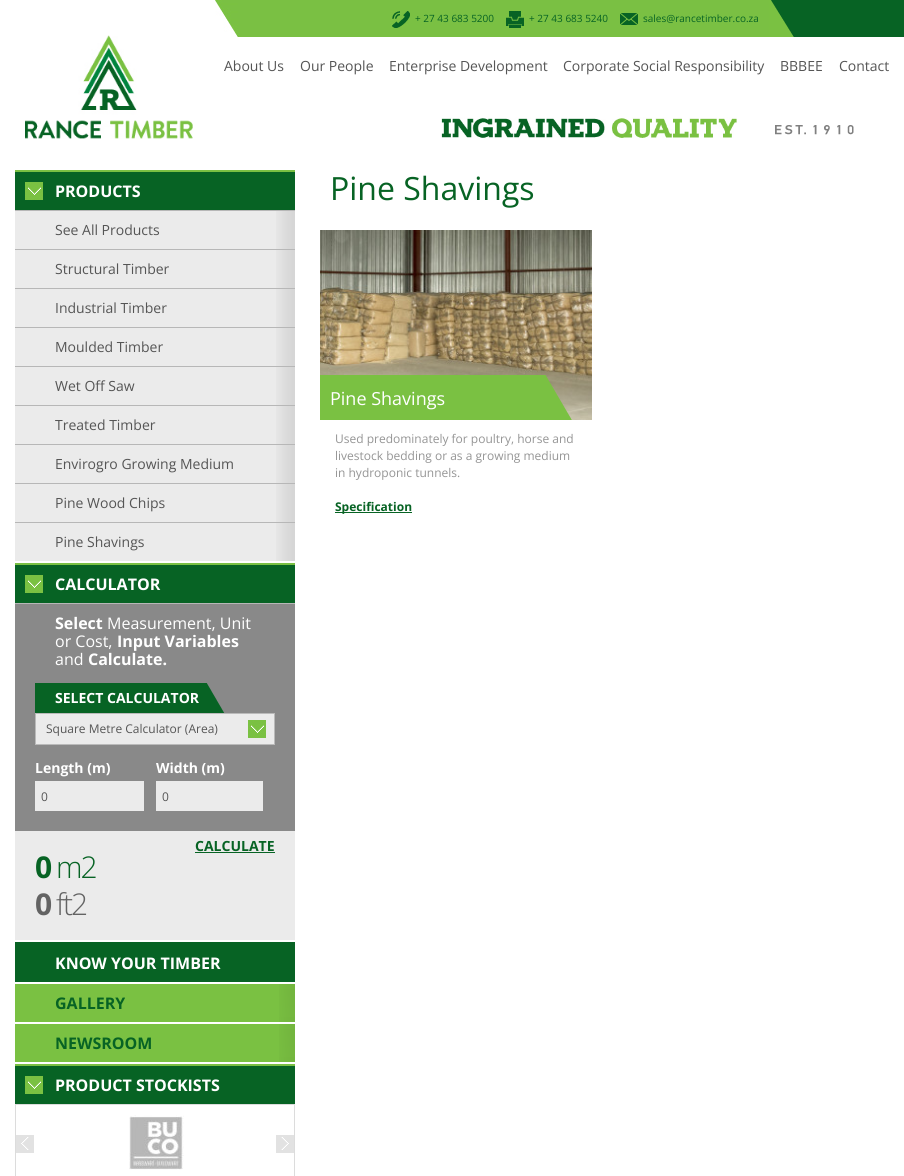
#include <cairo.h>
#include <math.h>
#include <stddef.h>


static void set_color(cairo_t *cr, unsigned color) {
    cairo_set_source_rgb(cr, (color >> 16) / 255.0, (color >> 8 & 255) / 255.0, (color & 255) / 255.0);
}

static void draw_text(cairo_t *cr, double x, double y, const char *s, const char *family, double size, int italic, int bold, unsigned color) {
    cairo_select_font_face(cr, family, italic ? CAIRO_FONT_SLANT_ITALIC : CAIRO_FONT_SLANT_NORMAL,
        bold ? CAIRO_FONT_WEIGHT_BOLD : CAIRO_FONT_WEIGHT_NORMAL);
    cairo_set_font_size(cr, size);
    set_color(cr, color);
    cairo_move_to(cr, x, y);
    cairo_show_text(cr, s);
}

static void draw_spaced(cairo_t *cr, double x, double y, const char *s, double letter, double word) {
    cairo_move_to(cr, x, y);
    while (*s) {
        char ch[5] = {0};
        int n = 0;
        do ch[n++] = *s++; while ((*s & 0xC0) == 0x80);
        cairo_show_text(cr, ch);
        cairo_rel_move_to(cr, letter + word * (*ch == ' '), 0);
    }
}

static void fill_rect(cairo_t *cr, double x, double y, double w, double h, unsigned color) {
    set_color(cr, color);
    cairo_rectangle(cr, x, y, w, h);
    cairo_fill(cr);
}

static void draw_image(cairo_t *cr, const char *path, double x, double y, double w, double h) {
    cairo_surface_t *image = cairo_image_surface_create_from_png(path);
    cairo_save(cr);
    cairo_set_source_surface(cr, image, x, y);
    cairo_rectangle(cr, x, y, w, h);
    cairo_fill(cr);
    cairo_restore(cr);
    cairo_surface_destroy(image);
}

int main(void) {
    cairo_surface_t *surface = cairo_image_surface_create(CAIRO_FORMAT_RGB24, 904, 1176);
    cairo_t *cr = cairo_create(surface);
    cairo_font_options_t *options = cairo_font_options_create();
    cairo_font_options_set_hint_metrics(options, CAIRO_HINT_METRICS_OFF);
    cairo_font_options_set_hint_style(options, CAIRO_HINT_STYLE_NONE);
    cairo_set_font_options(cr, options);
    cairo_set_miter_limit(cr, 4);
    set_color(cr, 0xFFFFFF);
    cairo_paint(cr);
    fill_rect(cr, 794, 0, 110, 37, 0x076324);
    fill_rect(cr, 238, 0, 531, 37, 0x7AC043);
    draw_image(cr, "assets/img1.png", 215, 0, 23, 37);
    draw_image(cr, "assets/img2.png", 390, 10, 20, 18);
    draw_text(cr, 415, 22, "+ 27 43 683 5200", "Open Sans", 10, 0, 0, 0x076324);
    draw_image(cr, "assets/img3.png", 506, 11, 19, 18);
    draw_text(cr, 529, 22, "+ 27 43 683 5240", "Open Sans", 10, 0, 0, 0x076324);
    draw_image(cr, "assets/img4.png", 620, 12, 18, 14);
    draw_text(cr, 643, 22, "sales@rancetimber.co.za", "Open Sans", 10, 0, 0, 0x076324);
    draw_image(cr, "assets/img5.png", 769, 0, 25, 37);
    draw_image(cr, "assets/img6.png", 25, 35, 168, 104);
    draw_text(cr, 224, 71, "About Us", "Open Sans", 14, 0, 0, 0x555555);
    draw_text(cr, 300, 71, "Our People", "Open Sans", 14, 0, 0, 0x555555);
    draw_text(cr, 389, 71, "Enterprise Development", "Open Sans", 14, 0, 0, 0x555555);
    draw_text(cr, 563, 71, "Corporate Social Responsibility", "Open Sans", 14, 0, 0, 0x555555);
    draw_text(cr, 780, 71, "BBBEE", "Open Sans", 14, 0, 0, 0x555555);
    draw_text(cr, 839, 71, "Contact", "Open Sans", 14, 0, 0, 0x555555);
    draw_image(cr, "assets/img7.png", 441, 117, 296, 21);
    draw_image(cr, "assets/img8.png", 775, 125, 79, 10);
    fill_rect(cr, 15, 172, 280, 38, 0x076324);
    draw_image(cr, "assets/img9.png", 25, 182, 18, 18);
    fill_rect(cr, 15, 170, 280, 2, 0x7AC043);
    draw_text(cr, 55, 197, "PRODUCTS", "Open Sans", 16, 0, 1, 0xFFFFFF);
    fill_rect(cr, 15, 211, 261, 38, 0xEBEBEB);
    draw_image(cr, "assets/img10.png", 276, 211, 19, 38);
    fill_rect(cr, 15, 210, 280, 1, 0xB7B7B7);
    draw_text(cr, 55, 235, "See All Products", "Open Sans", 14, 0, 0, 0x555555);
    fill_rect(cr, 15, 250, 261, 38, 0xEBEBEB);
    draw_image(cr, "assets/img10.png", 276, 250, 19, 38);
    fill_rect(cr, 15, 249, 280, 1, 0xB7B7B7);
    draw_text(cr, 55, 274, "Structural Timber", "Open Sans", 14, 0, 0, 0x555555);
    fill_rect(cr, 15, 289, 261, 38, 0xEBEBEB);
    draw_image(cr, "assets/img10.png", 276, 289, 19, 38);
    fill_rect(cr, 15, 288, 280, 1, 0xB7B7B7);
    draw_text(cr, 55, 313, "Industrial Timber", "Open Sans", 14, 0, 0, 0x555555);
    fill_rect(cr, 15, 328, 261, 38, 0xEBEBEB);
    draw_image(cr, "assets/img10.png", 276, 328, 19, 38);
    fill_rect(cr, 15, 327, 280, 1, 0xB7B7B7);
    draw_text(cr, 55, 352, "Moulded Timber", "Open Sans", 14, 0, 0, 0x555555);
    fill_rect(cr, 15, 367, 261, 38, 0xEBEBEB);
    draw_image(cr, "assets/img10.png", 276, 367, 19, 38);
    fill_rect(cr, 15, 366, 280, 1, 0xB7B7B7);
    draw_text(cr, 55, 391, "Wet Off Saw", "Open Sans", 14, 0, 0, 0x555555);
    fill_rect(cr, 15, 406, 261, 38, 0xEBEBEB);
    draw_image(cr, "assets/img10.png", 276, 406, 19, 38);
    fill_rect(cr, 15, 405, 280, 1, 0xB7B7B7);
    draw_text(cr, 55, 430, "Treated Timber", "Open Sans", 14, 0, 0, 0x555555);
    fill_rect(cr, 15, 445, 261, 38, 0xEBEBEB);
    draw_image(cr, "assets/img10.png", 276, 445, 19, 38);
    fill_rect(cr, 15, 444, 280, 1, 0xB7B7B7);
    draw_text(cr, 55, 469, "Envirogro Growing Medium", "Open Sans", 14, 0, 0, 0x555555);
    fill_rect(cr, 15, 484, 261, 38, 0xEBEBEB);
    draw_image(cr, "assets/img10.png", 276, 484, 19, 38);
    fill_rect(cr, 15, 483, 280, 1, 0xB7B7B7);
    draw_text(cr, 55, 508, "Pine Wood Chips", "Open Sans", 14, 0, 0, 0x555555);
    fill_rect(cr, 15, 523, 261, 38, 0xEBEBEB);
    draw_image(cr, "assets/img10.png", 276, 523, 19, 38);
    fill_rect(cr, 15, 522, 280, 1, 0xB7B7B7);
    draw_text(cr, 55, 547, "Pine Shavings", "Open Sans", 14, 0, 0, 0x555555);
    fill_rect(cr, 15, 565, 280, 38, 0x076324);
    draw_image(cr, "assets/img9.png", 25, 575, 18, 18);
    fill_rect(cr, 15, 563, 280, 2, 0x7AC043);
    draw_text(cr, 55, 590, "CALCULATOR", "Open Sans", 16, 0, 1, 0xFFFFFF);
    fill_rect(cr, 15, 604, 280, 227, 0x898989);
    fill_rect(cr, 15, 603, 280, 1, 0xB7B7B7);
    draw_text(cr, 55, 629, "Select", "Open Sans", 16, 0, 1, 0xFFFFFF);
    draw_text(cr, 107, 629, "Measurement, Unit", "Open Sans", 16, 0, 0, 0xFFFFFF);
    draw_text(cr, 55, 647, "or Cost,", "Open Sans", 16, 0, 0, 0xFFFFFF);
    draw_text(cr, 117, 647, "Input Variables", "Open Sans", 16, 0, 1, 0xFFFFFF);
    draw_text(cr, 55, 665, "and", "Open Sans", 16, 0, 0, 0xFFFFFF);
    draw_text(cr, 88, 665, "Calculate.", "Open Sans", 16, 0, 1, 0xFFFFFF);
    draw_image(cr, "assets/img11.png", 35, 683, 190, 30);
    draw_text(cr, 55, 703, "SELECT CALCULATOR", "Open Sans", 14, 0, 1, 0xFFFFFF);
    set_color(cr, 0xEBEBEB);
    cairo_rectangle(cr, 35.5, 713.5, 239, 31);
    cairo_fill_preserve(cr);
    set_color(cr, 0xBABABA);
    cairo_set_line_width(cr, 1);
    cairo_stroke(cr);
    draw_text(cr, 46, 733, "Square Metre Calculator (Area)", "Open Sans", 12, 0, 0, 0x555555);
    draw_image(cr, "assets/img9.png", 248, 720, 18, 18);
    draw_text(cr, 35, 773, "Length (m)", "Open Sans", 14, 0, 1, 0xFFFFFF);
    draw_text(cr, 156, 773, "Width (m)", "Open Sans", 14, 0, 1, 0xFFFFFF);
    fill_rect(cr, 35, 781, 109, 30, 0xEBEBEB);
    draw_text(cr, 41, 801, "0", "Open Sans", 12, 0, 0, 0x555555);
    fill_rect(cr, 156, 781, 107, 30, 0xEBEBEB);
    draw_text(cr, 162, 801, "0", "Open Sans", 12, 0, 0, 0x555555);
    fill_rect(cr, 15, 831, 280, 109, 0xEBEBEB);
    draw_text(cr, 195, 851, "CALCULATE", "Open Sans", 14, 0, 1, 0x076324);
    fill_rect(cr, 195, 852, 80, 1, 0x076324);
    cairo_set_font_size(cr, 30);
    draw_spaced(cr, 35, 878, "0", -2, 0);
    cairo_select_font_face(cr, "Open Sans Light", CAIRO_FONT_SLANT_NORMAL, CAIRO_FONT_WEIGHT_NORMAL);
    draw_spaced(cr, 56, 878, "m2", -2, 0);
    cairo_select_font_face(cr, "Open Sans", CAIRO_FONT_SLANT_NORMAL, CAIRO_FONT_WEIGHT_BOLD);
    set_color(cr, 0x636363);
    draw_spaced(cr, 35, 915, "0", -2, 0);
    cairo_select_font_face(cr, "Open Sans Light", CAIRO_FONT_SLANT_NORMAL, CAIRO_FONT_WEIGHT_NORMAL);
    draw_spaced(cr, 56, 915, "ft2", -2, 0);
    fill_rect(cr, 15, 942, 280, 40, 0x076324);
    draw_text(cr, 55, 969, "KNOW YOUR TIMBER", "Open Sans", 16, 0, 1, 0xFFFFFF);
    fill_rect(cr, 15, 984, 264, 38, 0x7AC142);
    draw_image(cr, "assets/img12.png", 279, 984, 16, 38);
    draw_text(cr, 55, 1009, "GALLERY", "Open Sans", 16, 0, 1, 0x076324);
    fill_rect(cr, 15, 1024, 264, 38, 0x7AC142);
    draw_image(cr, "assets/img12.png", 279, 1024, 16, 38);
    draw_text(cr, 55, 1049, "NEWSROOM", "Open Sans", 16, 0, 1, 0x076324);
    fill_rect(cr, 15, 1066, 280, 38, 0x076324);
    draw_image(cr, "assets/img9.png", 25, 1076, 18, 18);
    fill_rect(cr, 15, 1064, 280, 2, 0x7AC043);
    draw_text(cr, 55, 1091, "PRODUCT STOCKISTS", "Open Sans", 16, 0, 1, 0xFFFFFF);
    cairo_rectangle(cr, 15.5, 1104.5, 279, 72);
    set_color(cr, 0xDCDCDC);
    cairo_stroke(cr);
    fill_rect(cr, 16, 1135, 18, 18, 0xE2E2E2);
    draw_image(cr, "assets/img13.png", 21, 1137, 8, 13);
    draw_image(cr, "assets/img14.png", 129, 1115, 55, 55);
    fill_rect(cr, 276, 1135, 18, 18, 0xE2E2E2);
    draw_image(cr, "assets/img15.png", 281, 1137, 8, 13);
    draw_text(cr, 330, 200, "Pine Shavings", "Open Sans", 32, 0, 0, 0x076324);
    draw_image(cr, "assets/img16.png", 320, 230, 272, 190);
    draw_image(cr, "assets/img17.png", 320, 375, 252, 45);
    draw_text(cr, 330, 405, "Pine Shavings", "Open Sans", 18, 0, 0, 0xFFFFFF);
    draw_text(cr, 335, 443, "Used predominately for poultry, horse and", "Open Sans", 12, 0, 0, 0x959595);
    draw_text(cr, 335, 460, "livestock bedding or as a growing medium", "Open Sans", 12, 0, 0, 0x959595);
    draw_text(cr, 335, 477, "in hydroponic tunnels.", "Open Sans", 12, 0, 0, 0x959595);
    fill_rect(cr, 335, 512, 77, 1, 0x076324);
    draw_text(cr, 335, 511, "Specification", "Open Sans", 12, 0, 1, 0x076324);
    cairo_surface_write_to_png(surface, "output.png");
    cairo_font_options_destroy(options);
    cairo_destroy(cr);
    cairo_surface_destroy(surface);
    return 0;
}
